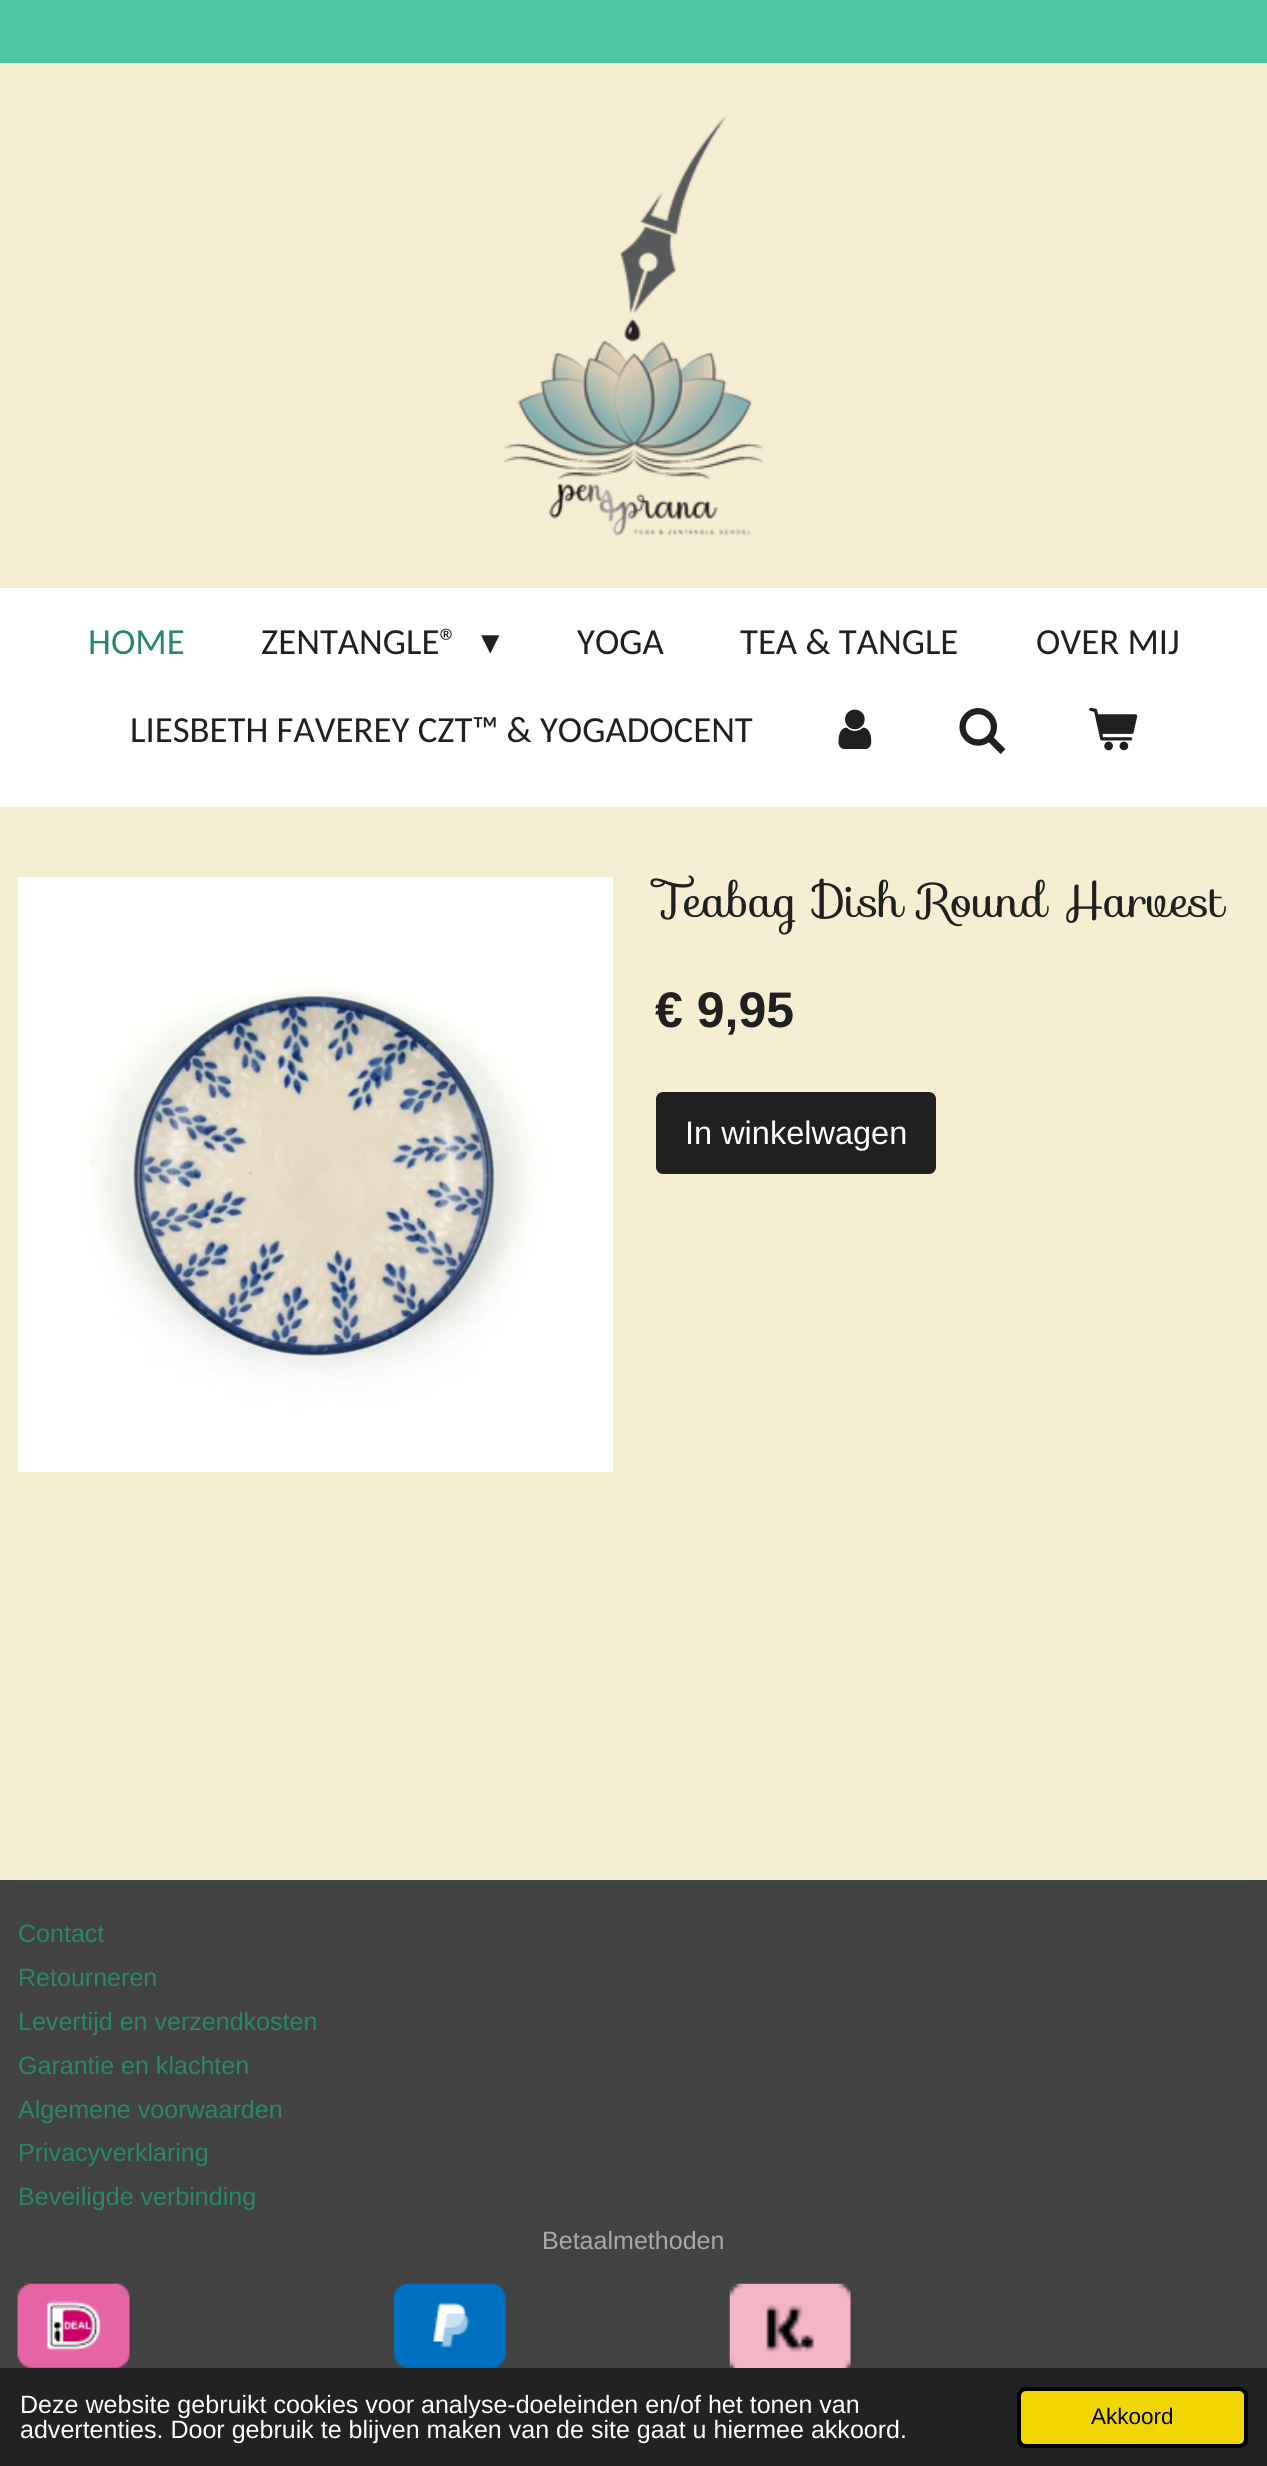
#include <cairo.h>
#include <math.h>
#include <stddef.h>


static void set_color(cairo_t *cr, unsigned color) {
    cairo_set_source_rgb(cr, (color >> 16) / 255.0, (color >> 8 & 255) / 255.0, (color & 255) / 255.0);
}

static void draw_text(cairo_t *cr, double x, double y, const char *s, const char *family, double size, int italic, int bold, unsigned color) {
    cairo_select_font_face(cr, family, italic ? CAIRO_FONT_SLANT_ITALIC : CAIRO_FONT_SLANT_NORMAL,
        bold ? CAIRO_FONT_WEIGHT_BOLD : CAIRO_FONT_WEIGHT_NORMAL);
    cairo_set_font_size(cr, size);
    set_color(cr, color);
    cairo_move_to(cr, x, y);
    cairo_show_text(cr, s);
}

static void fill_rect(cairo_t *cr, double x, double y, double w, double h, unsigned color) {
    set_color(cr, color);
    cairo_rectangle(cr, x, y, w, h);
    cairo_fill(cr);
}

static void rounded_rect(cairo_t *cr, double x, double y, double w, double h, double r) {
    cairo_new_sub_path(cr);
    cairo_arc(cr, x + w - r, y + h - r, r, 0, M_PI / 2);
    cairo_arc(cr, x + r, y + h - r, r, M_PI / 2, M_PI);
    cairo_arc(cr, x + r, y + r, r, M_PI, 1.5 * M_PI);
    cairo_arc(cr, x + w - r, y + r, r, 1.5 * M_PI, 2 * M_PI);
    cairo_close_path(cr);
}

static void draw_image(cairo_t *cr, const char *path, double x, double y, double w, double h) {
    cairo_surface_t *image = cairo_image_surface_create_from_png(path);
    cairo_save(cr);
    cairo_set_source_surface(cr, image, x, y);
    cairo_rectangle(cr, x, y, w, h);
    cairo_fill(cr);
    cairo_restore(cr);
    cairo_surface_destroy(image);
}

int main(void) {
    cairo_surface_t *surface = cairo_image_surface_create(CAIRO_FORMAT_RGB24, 1267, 2466);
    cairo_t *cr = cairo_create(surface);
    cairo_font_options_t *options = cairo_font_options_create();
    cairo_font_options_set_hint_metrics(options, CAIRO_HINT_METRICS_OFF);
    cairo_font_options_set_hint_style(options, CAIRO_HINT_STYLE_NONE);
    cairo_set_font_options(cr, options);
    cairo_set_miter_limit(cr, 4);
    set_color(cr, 0xF6EED2);
    cairo_paint(cr);
    fill_rect(cr, 0, 0, 1267, 63, 0x4CC9A4);
    draw_image(cr, "assets/img1.png", 504, 115, 259, 421);
    fill_rect(cr, 0, 588, 1267, 219, 0xFFFFFF);
    draw_text(cr, 88, 654, "HOME", "Carlito", 36.75, 0, 0, 0x29876B);
    draw_text(cr, 261, 654, "ZENTANGLE®", "Carlito", 36.75, 0, 0, 0x202020);
    draw_text(cr, 481, 654, "▾", "DejaVu Sans", 36.75, 0, 0, 0x202020);
    draw_text(cr, 577, 654, "YOGA", "Carlito", 36.75, 0, 0, 0x202020);
    draw_text(cr, 740, 654, "TEA & TANGLE", "Carlito", 36.75, 0, 0, 0x202020);
    draw_text(cr, 1036, 654, "OVER MIJ", "Carlito", 36.75, 0, 0, 0x202020);
    draw_text(cr, 130, 742, "LIESBETH FAVEREY CZT™ & YOGADOCENT", "Carlito", 36.75, 0, 0, 0x202020);
    draw_image(cr, "assets/img2.png", 838, 709, 34, 40);
    draw_image(cr, "assets/img3.png", 959, 708, 47, 46);
    draw_image(cr, "assets/img4.png", 1089, 707, 49, 44);
    draw_image(cr, "assets/img5.png", 18, 877, 595, 595);
    draw_text(cr, 655, 917, "Teabag Dish Round Harvest", "Sofia", 46.4, 0, 0, 0x202020);
    draw_text(cr, 655, 1027, "€ 9,95", "Liberation Sans", 50, 0, 1, 0x202020);
    rounded_rect(cr, 656, 1092, 280, 82, 7);
    cairo_fill(cr);
    draw_text(cr, 685, 1144, "In winkelwagen", "Liberation Sans", 32.5, 0, 0, 0xFFFFFF);
    fill_rect(cr, 0, 1880, 1267, 488, 0x424242);
    fill_rect(cr, 18, 1880, 1232, 4, 0x3E4C48);
    draw_text(cr, 18, 1942, "Contact", "Liberation Sans", 25.05, 0, 0, 0x29876B);
    draw_text(cr, 18, 1986, "Retourneren", "Liberation Sans", 25.05, 0, 0, 0x29876B);
    draw_text(cr, 18, 2030, "Levertijd en verzendkosten", "Liberation Sans", 25.05, 0, 0, 0x29876B);
    draw_text(cr, 18, 2074, "Garantie en klachten", "Liberation Sans", 25.05, 0, 0, 0x29876B);
    draw_text(cr, 18, 2118, "Algemene voorwaarden", "Liberation Sans", 25.05, 0, 0, 0x29876B);
    draw_text(cr, 18, 2161, "Privacyverklaring", "Liberation Sans", 25.05, 0, 0, 0x29876B);
    draw_text(cr, 18, 2205, "Beveiligde verbinding", "Liberation Sans", 25.05, 0, 0, 0x29876B);
    draw_text(cr, 542, 2249, "Betaalmethoden", "Liberation Sans", 25.05, 0, 0, 0xA8A8A8);
    draw_image(cr, "assets/img6.png", 17, 2283, 113, 85);
    draw_image(cr, "assets/img7.png", 393, 2283, 113, 85);
    draw_image(cr, "assets/img8.png", 729, 2283, 122, 85);
    fill_rect(cr, 0, 2368, 1267, 98, 0x222222);
    draw_text(cr, 20, 2413, "Deze website gebruikt cookies voor analyse-doeleinden en/of het tonen van", "Liberation Sans", 25.05, 0, 0, 0xFFFFFF);
    draw_text(cr, 20, 2438, "advertenties. Door gebruik te blijven maken van de site gaat u hiermee akkoord.", "Liberation Sans", 25.05, 0, 0, 0xFFFFFF);
    set_color(cr, 0xF1D600);
    rounded_rect(cr, 1019, 2389, 227, 57, 7);
    cairo_fill_preserve(cr);
    set_color(cr, 0x000000);
    cairo_set_line_width(cr, 4);
    cairo_stroke(cr);
    draw_text(cr, 1091, 2424, "Akkoord", "Liberation Sans", 22.5, 0, 0, 0x000000);
    cairo_surface_write_to_png(surface, "output.png");
    cairo_font_options_destroy(options);
    cairo_destroy(cr);
    cairo_surface_destroy(surface);
    return 0;
}
